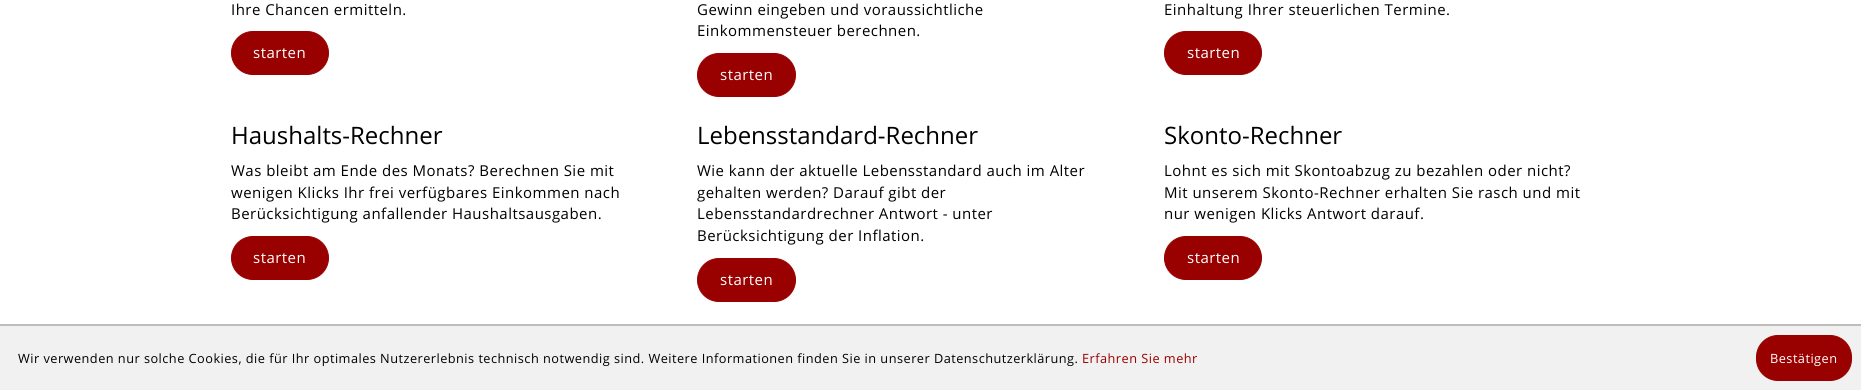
#include <cairo.h>
#include <math.h>
#include <stddef.h>


static void set_color(cairo_t *cr, unsigned color) {
    cairo_set_source_rgb(cr, (color >> 16) / 255.0, (color >> 8 & 255) / 255.0, (color & 255) / 255.0);
}

static void draw_text(cairo_t *cr, double x, double y, const char *s, const char *family, double size, int italic, int bold, unsigned color) {
    cairo_select_font_face(cr, family, italic ? CAIRO_FONT_SLANT_ITALIC : CAIRO_FONT_SLANT_NORMAL,
        bold ? CAIRO_FONT_WEIGHT_BOLD : CAIRO_FONT_WEIGHT_NORMAL);
    cairo_set_font_size(cr, size);
    set_color(cr, color);
    cairo_move_to(cr, x, y);
    cairo_show_text(cr, s);
}

static void draw_spaced(cairo_t *cr, double x, double y, const char *s, double letter, double word) {
    cairo_move_to(cr, x, y);
    while (*s) {
        char ch[5] = {0};
        int n = 0;
        do ch[n++] = *s++; while ((*s & 0xC0) == 0x80);
        cairo_show_text(cr, ch);
        cairo_rel_move_to(cr, letter + word * (*ch == ' '), 0);
    }
}

static void fill_rect(cairo_t *cr, double x, double y, double w, double h, unsigned color) {
    set_color(cr, color);
    cairo_rectangle(cr, x, y, w, h);
    cairo_fill(cr);
}

static void rounded_rect(cairo_t *cr, double x, double y, double w, double h, double r) {
    cairo_new_sub_path(cr);
    cairo_arc(cr, x + w - r, y + h - r, r, 0, M_PI / 2);
    cairo_arc(cr, x + r, y + h - r, r, M_PI / 2, M_PI);
    cairo_arc(cr, x + r, y + r, r, M_PI, 1.5 * M_PI);
    cairo_arc(cr, x + w - r, y + r, r, 1.5 * M_PI, 2 * M_PI);
    cairo_close_path(cr);
}

int main(void) {
    cairo_surface_t *surface = cairo_image_surface_create(CAIRO_FORMAT_RGB24, 1861, 390);
    cairo_t *cr = cairo_create(surface);
    cairo_font_options_t *options = cairo_font_options_create();
    cairo_font_options_set_hint_metrics(options, CAIRO_HINT_METRICS_OFF);
    cairo_font_options_set_hint_style(options, CAIRO_HINT_STYLE_NONE);
    cairo_set_font_options(cr, options);
    cairo_set_miter_limit(cr, 4);
    set_color(cr, 0xFFFFFF);
    cairo_paint(cr);
    cairo_select_font_face(cr, "Open Sans", CAIRO_FONT_SLANT_NORMAL, CAIRO_FONT_WEIGHT_NORMAL);
    cairo_set_font_size(cr, 15);
    set_color(cr, 0x000000);
    draw_spaced(cr, 231, 15, "Ihre Chancen ermitteln.", 0.47, 0);
    set_color(cr, 0x990000);
    rounded_rect(cr, 231.5, 31.5, 97, 43, 21.5);
    cairo_fill_preserve(cr);
    cairo_set_line_width(cr, 1);
    cairo_stroke(cr);
    set_color(cr, 0xFFFFFF);
    draw_spaced(cr, 253, 58, "starten", 0.47, 0);
    set_color(cr, 0x000000);
    draw_spaced(cr, 697, 15, "Gewinn eingeben und voraussichtliche", 0.47, 0);
    draw_spaced(cr, 697, 36, "Einkommensteuer berechnen.", 0.47, 0);
    set_color(cr, 0x990000);
    rounded_rect(cr, 697.5, 53.5, 98, 43, 21.5);
    cairo_fill_preserve(cr);
    cairo_stroke(cr);
    set_color(cr, 0xFFFFFF);
    draw_spaced(cr, 720, 80, "starten", 0.47, 0);
    set_color(cr, 0x000000);
    draw_spaced(cr, 1164, 15, "Einhaltung Ihrer steuerlichen Termine.", 0.47, 0);
    set_color(cr, 0x990000);
    rounded_rect(cr, 1164.5, 31.5, 97, 43, 21.5);
    cairo_fill_preserve(cr);
    cairo_stroke(cr);
    set_color(cr, 0xFFFFFF);
    draw_spaced(cr, 1187, 58, "starten", 0.47, 0);
    draw_text(cr, 231, 144, "Haushalts-Rechner", "Open Sans", 24, 0, 0, 0x000000);
    cairo_set_font_size(cr, 15);
    draw_spaced(cr, 231, 176, "Was bleibt am Ende des Monats? Berechnen Sie mit", 0.47, 0);
    draw_spaced(cr, 231, 198, "wenigen Klicks Ihr frei verfügbares Einkommen nach", 0.47, 0);
    draw_spaced(cr, 231, 219, "Berücksichtigung anfallender Haushaltsausgaben.", 0.47, 0);
    set_color(cr, 0x990000);
    rounded_rect(cr, 231.5, 236.5, 97, 43, 21.5);
    cairo_fill_preserve(cr);
    cairo_stroke(cr);
    set_color(cr, 0xFFFFFF);
    draw_spaced(cr, 253, 263, "starten", 0.47, 0);
    draw_text(cr, 697, 144, "Lebensstandard-Rechner", "Open Sans", 24, 0, 0, 0x000000);
    cairo_set_font_size(cr, 15);
    draw_spaced(cr, 697, 176, "Wie kann der aktuelle Lebensstandard auch im Alter", 0.47, 0);
    draw_spaced(cr, 697, 198, "gehalten werden? Darauf gibt der", 0.47, 0);
    draw_spaced(cr, 697, 219, "Lebensstandardrechner Antwort - unter", 0.47, 0);
    draw_spaced(cr, 697, 241, "Berücksichtigung der Inflation.", 0.47, 0);
    set_color(cr, 0x990000);
    rounded_rect(cr, 697.5, 258.5, 98, 43, 21.5);
    cairo_fill_preserve(cr);
    cairo_stroke(cr);
    set_color(cr, 0xFFFFFF);
    draw_spaced(cr, 720, 285, "starten", 0.47, 0);
    draw_text(cr, 1164, 144, "Skonto-Rechner", "Open Sans", 24, 0, 0, 0x000000);
    cairo_set_font_size(cr, 15);
    draw_spaced(cr, 1164, 176, "Lohnt es sich mit Skontoabzug zu bezahlen oder nicht?", 0.47, 0);
    draw_spaced(cr, 1164, 198, "Mit unserem Skonto-Rechner erhalten Sie rasch und mit", 0.47, 0);
    draw_spaced(cr, 1164, 219, "nur wenigen Klicks Antwort darauf.", 0.47, 0);
    set_color(cr, 0x990000);
    rounded_rect(cr, 1164.5, 236.5, 97, 43, 21.5);
    cairo_fill_preserve(cr);
    cairo_stroke(cr);
    set_color(cr, 0xFFFFFF);
    draw_spaced(cr, 1187, 263, "starten", 0.47, 0);
    fill_rect(cr, 0, 326, 1861, 64, 0xF2F1F1);
    fill_rect(cr, 0, 324, 1861, 2, 0xC1BCBC);
    cairo_set_font_size(cr, 12.75);
    set_color(cr, 0x000000);
    draw_spaced(cr, 18, 363, "Wir verwenden nur solche Cookies, die für Ihr optimales Nutzererlebnis technisch notwendig sind. Weitere Informationen finden Sie in unserer Datenschutzerklärung.", 0.47, 0);
    set_color(cr, 0x990000);
    draw_spaced(cr, 1082, 363, "Erfahren Sie mehr", 0.47, 0);
    rounded_rect(cr, 1756.5, 335.5, 95, 45, 21.5);
    cairo_fill_preserve(cr);
    cairo_stroke(cr);
    set_color(cr, 0xFFFFFF);
    draw_spaced(cr, 1770, 363, "Bestätigen", 0.47, 0);
    cairo_surface_write_to_png(surface, "output.png");
    cairo_font_options_destroy(options);
    cairo_destroy(cr);
    cairo_surface_destroy(surface);
    return 0;
}
